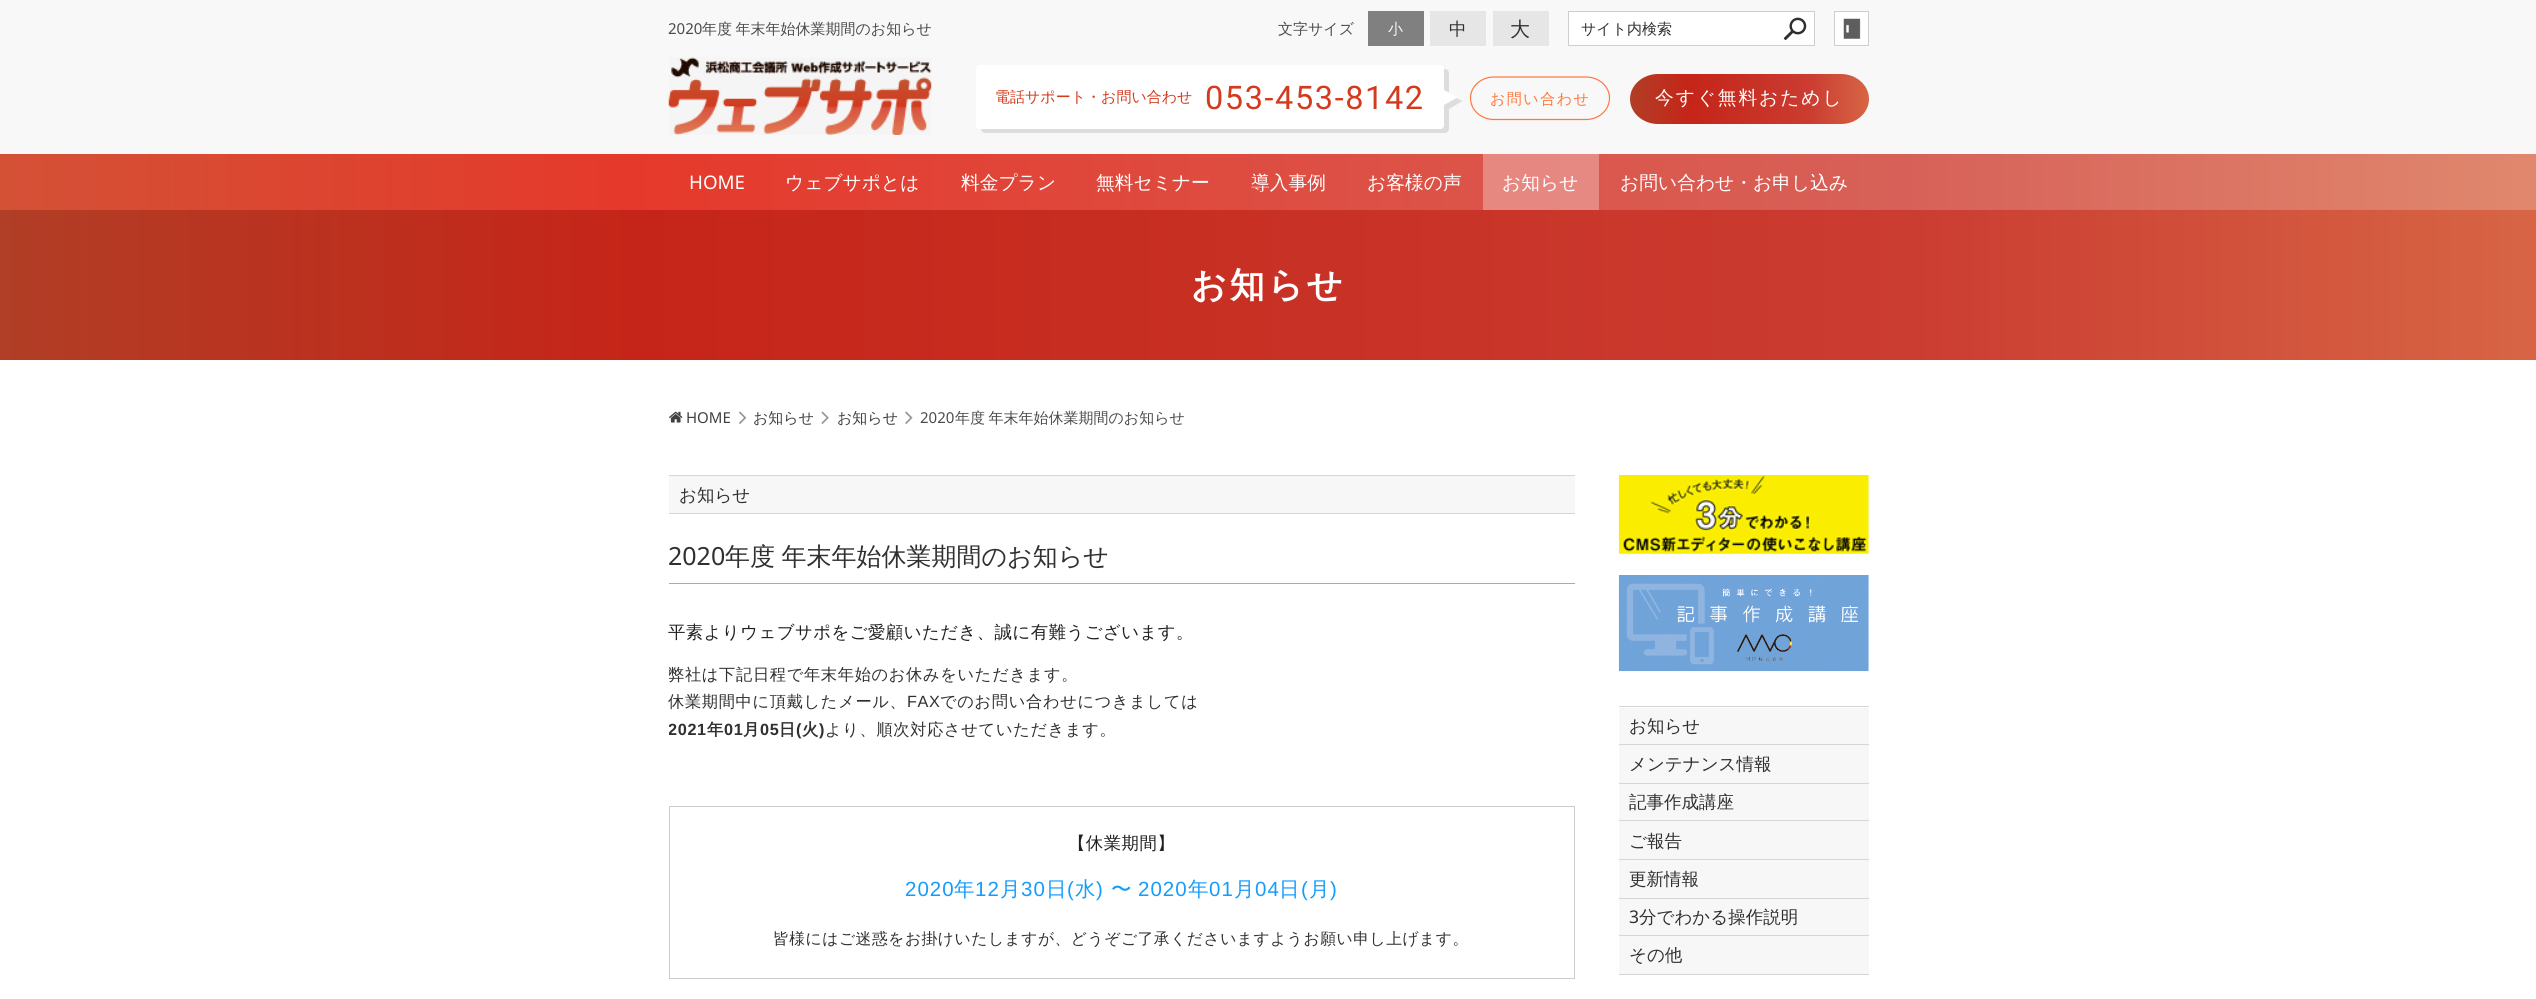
#include <cairo.h>
#include <math.h>
#include <stddef.h>


static void set_color(cairo_t *cr, unsigned color) {
    cairo_set_source_rgb(cr, (color >> 16) / 255.0, (color >> 8 & 255) / 255.0, (color & 255) / 255.0);
}

static void draw_text(cairo_t *cr, double x, double y, const char *s, const char *family, double size, int italic, int bold, unsigned color) {
    cairo_select_font_face(cr, family, italic ? CAIRO_FONT_SLANT_ITALIC : CAIRO_FONT_SLANT_NORMAL,
        bold ? CAIRO_FONT_WEIGHT_BOLD : CAIRO_FONT_WEIGHT_NORMAL);
    cairo_set_font_size(cr, size);
    set_color(cr, color);
    cairo_move_to(cr, x, y);
    cairo_show_text(cr, s);
}

static void draw_spaced(cairo_t *cr, double x, double y, const char *s, double letter, double word) {
    cairo_move_to(cr, x, y);
    while (*s) {
        char ch[5] = {0};
        int n = 0;
        do ch[n++] = *s++; while ((*s & 0xC0) == 0x80);
        cairo_show_text(cr, ch);
        cairo_rel_move_to(cr, letter + word * (*ch == ' '), 0);
    }
}

static void fill_rect(cairo_t *cr, double x, double y, double w, double h, unsigned color) {
    set_color(cr, color);
    cairo_rectangle(cr, x, y, w, h);
    cairo_fill(cr);
}

static void rounded_rect(cairo_t *cr, double x, double y, double w, double h, double r) {
    cairo_new_sub_path(cr);
    cairo_arc(cr, x + w - r, y + h - r, r, 0, M_PI / 2);
    cairo_arc(cr, x + r, y + h - r, r, M_PI / 2, M_PI);
    cairo_arc(cr, x + r, y + r, r, M_PI, 1.5 * M_PI);
    cairo_arc(cr, x + w - r, y + r, r, 1.5 * M_PI, 2 * M_PI);
    cairo_close_path(cr);
}

static void draw_image(cairo_t *cr, const char *path, double x, double y, double w, double h) {
    cairo_surface_t *image = cairo_image_surface_create_from_png(path);
    cairo_save(cr);
    cairo_set_source_surface(cr, image, x, y);
    cairo_rectangle(cr, x, y, w, h);
    cairo_fill(cr);
    cairo_restore(cr);
    cairo_surface_destroy(image);
}

int main(void) {
    cairo_surface_t *surface = cairo_image_surface_create(CAIRO_FORMAT_RGB24, 2536, 999);
    cairo_t *cr = cairo_create(surface);
    cairo_font_options_t *options = cairo_font_options_create();
    cairo_font_options_set_hint_metrics(options, CAIRO_HINT_METRICS_OFF);
    cairo_font_options_set_hint_style(options, CAIRO_HINT_STYLE_NONE);
    cairo_set_font_options(cr, options);
    cairo_set_miter_limit(cr, 4);
    cairo_pattern_t *gradient;
    set_color(cr, 0xFFFFFF);
    cairo_paint(cr);
    fill_rect(cr, 0, 0, 2536, 154, 0xF8F8F8);
    draw_text(cr, 668, 34, "2020", "Noto Sans", 15, 0, 0, 0x4B4B4B);
    cairo_select_font_face(cr, "WenQuanYi Zen Hei Medium", CAIRO_FONT_SLANT_NORMAL, CAIRO_FONT_WEIGHT_NORMAL);
    draw_spaced(cr, 702, 34, "年度 年末年始休業期間のお知らせ", 0, -1);
    draw_text(cr, 1278, 34, "文字サイズ", "WenQuanYi Zen Hei Medium", 15, 0, 0, 0x4B4B4B);
    fill_rect(cr, 1368, 11, 56, 35, 0x808080);
    draw_text(cr, 1388, 34, "小", "WenQuanYi Zen Hei Medium", 15, 0, 0, 0xF7F7F7);
    fill_rect(cr, 1430, 11, 56, 35, 0xE6E6E6);
    draw_text(cr, 1449, 35, "中", "WenQuanYi Zen Hei Medium", 17.5, 0, 0, 0x303030);
    fill_rect(cr, 1493, 11, 56, 35, 0xE6E6E6);
    draw_text(cr, 1510, 36, "大", "WenQuanYi Zen Hei Medium", 20, 0, 0, 0x303030);
    set_color(cr, 0xFFFFFF);
    cairo_rectangle(cr, 1568.5, 11.5, 246, 34);
    cairo_fill_preserve(cr);
    set_color(cr, 0xCECECE);
    cairo_set_line_width(cr, 1);
    cairo_stroke(cr);
    draw_text(cr, 1581, 34, "サイト内検索", "WenQuanYi Zen Hei Medium", 15, 0, 0, 0x303030);
    draw_image(cr, "assets/img1.png", 1783, 17, 24, 24);
    fill_rect(cr, 1835, 12, 33, 33, 0xFFFFFF);
    draw_image(cr, "assets/img2.png", 1843, 18, 18, 21);
    cairo_rectangle(cr, 1834.5, 11.5, 34, 34);
    set_color(cr, 0xCECECE);
    cairo_stroke(cr);
    draw_image(cr, "assets/img3.png", 668, 57, 264, 78);
    set_color(cr, 0xDDDDDD);
    cairo_new_path(cr);
    cairo_move_to(cr, 981, 129);
    cairo_curve_to(cr, 981, 131, 983, 133, 985, 133);
    cairo_line_to(cr, 1445, 133);
    cairo_curve_to(cr, 1447, 133, 1449, 131, 1449, 129);
    cairo_line_to(cr, 1449, 73);
    cairo_curve_to(cr, 1449, 71, 1447, 69, 1445, 69);
    cairo_line_to(cr, 1444, 69);
    cairo_line_to(cr, 1444, 125);
    cairo_curve_to(cr, 1444, 127, 1442, 129, 1440, 129);
    cairo_close_path(cr);
    cairo_fill(cr);
    set_color(cr, 0xFFFFFF);
    rounded_rect(cr, 976, 65, 468, 64, 4);
    cairo_fill(cr);
    draw_text(cr, 995, 102, "電話サポート・お問い合わせ", "WenQuanYi Zen Hei Medium", 15, 0, 0, 0xD33A1E);
    cairo_select_font_face(cr, "Roboto", CAIRO_FONT_SLANT_NORMAL, CAIRO_FONT_WEIGHT_NORMAL);
    cairo_set_font_size(cr, 32.5);
    draw_spaced(cr, 1205, 109, "053-453-8142", 1.6, 0);
    set_color(cr, 0xDDDDDD);
    cairo_new_path(cr);
    cairo_move_to(cr, 1449, 109);
    cairo_line_to(cr, 1449, 94);
    cairo_line_to(cr, 1462.5, 101);
    cairo_close_path(cr);
    cairo_fill(cr);
    set_color(cr, 0xFFFFFF);
    cairo_new_path(cr);
    cairo_move_to(cr, 1444, 105);
    cairo_line_to(cr, 1444, 90);
    cairo_line_to(cr, 1457.5, 97.5);
    cairo_close_path(cr);
    cairo_fill(cr);
    cairo_new_path(cr);
    cairo_move_to(cr, 1494, 77);
    cairo_line_to(cr, 1586, 77);
    cairo_curve_to(cr, 1599, 77, 1609.5, 86.5, 1609.5, 98);
    cairo_curve_to(cr, 1609.5, 110, 1599, 119.5, 1586, 119.5);
    cairo_line_to(cr, 1494, 119.5);
    cairo_curve_to(cr, 1481, 119.5, 1470.5, 110, 1470.5, 98);
    cairo_curve_to(cr, 1470.5, 86.5, 1481, 77, 1494, 77);
    cairo_close_path(cr);
    set_color(cr, 0xFF783C);
    cairo_set_line_width(cr, 1.2);
    cairo_stroke(cr);
    cairo_select_font_face(cr, "WenQuanYi Zen Hei Medium", CAIRO_FONT_SLANT_NORMAL, CAIRO_FONT_WEIGHT_NORMAL);
    cairo_set_font_size(cr, 15);
    draw_spaced(cr, 1490, 104, "お問い合わせ", 1.5, 0);
    gradient = cairo_pattern_create_linear(1630, 99, 1869, 99);
    cairo_pattern_add_color_stop_rgba(gradient, 0, 0.694, 0.243, 0.149, 1);
    cairo_pattern_add_color_stop_rgba(gradient, 0.25, 0.773, 0.145, 0.094, 1);
    cairo_pattern_add_color_stop_rgba(gradient, 0.75, 0.796, 0.235, 0.192, 1);
    cairo_pattern_add_color_stop_rgba(gradient, 1, 0.843, 0.396, 0.267, 1);
    cairo_set_source(cr, gradient);
    cairo_pattern_destroy(gradient);
    cairo_new_path(cr);
    cairo_move_to(cr, 1658, 74);
    cairo_line_to(cr, 1841, 74);
    cairo_curve_to(cr, 1856, 74, 1869, 85, 1869, 99);
    cairo_curve_to(cr, 1869, 113, 1856, 124, 1841, 124);
    cairo_line_to(cr, 1658, 124);
    cairo_curve_to(cr, 1643, 124, 1630, 113, 1630, 99);
    cairo_curve_to(cr, 1630, 85, 1643, 74, 1658, 74);
    cairo_close_path(cr);
    cairo_fill(cr);
    cairo_set_font_size(cr, 18.75);
    set_color(cr, 0xFFFFFF);
    draw_spaced(cr, 1655, 104, "今すぐ無料おためし", 1.9, 0);
    gradient = cairo_pattern_create_linear(0, 182, 2536, 182);
    cairo_pattern_add_color_stop_rgba(gradient, 0, 0.831, 0.318, 0.212, 1);
    cairo_pattern_add_color_stop_rgba(gradient, 0.25, 0.898, 0.224, 0.169, 1);
    cairo_pattern_add_color_stop_rgba(gradient, 0.75, 0.843, 0.38, 0.345, 1);
    cairo_pattern_add_color_stop_rgba(gradient, 1, 0.878, 0.533, 0.431, 1);
    cairo_set_source(cr, gradient);
    cairo_pattern_destroy(gradient);
    cairo_rectangle(cr, 0, 154, 2536, 56);
    cairo_fill(cr);
    gradient = cairo_pattern_create_linear(0, 182, 2536, 182);
    cairo_pattern_add_color_stop_rgba(gradient, 0, 0.882, 0.522, 0.447, 1);
    cairo_pattern_add_color_stop_rgba(gradient, 0.25, 0.929, 0.455, 0.42, 1);
    cairo_pattern_add_color_stop_rgba(gradient, 0.75, 0.89, 0.565, 0.541, 1);
    cairo_pattern_add_color_stop_rgba(gradient, 1, 0.914, 0.675, 0.604, 1);
    cairo_set_source(cr, gradient);
    cairo_pattern_destroy(gradient);
    cairo_rectangle(cr, 1483, 154, 116, 56);
    cairo_fill(cr);
    draw_text(cr, 689, 189, "HOME", "Noto Sans", 18.75, 0, 0, 0xFFFFFF);
    draw_text(cr, 785, 189, "ウェブサポとは", "WenQuanYi Zen Hei Medium", 18.75, 0, 0, 0xFFFFFF);
    draw_text(cr, 961, 189, "料金プラン", "WenQuanYi Zen Hei Medium", 18.75, 0, 0, 0xFFFFFF);
    draw_text(cr, 1096, 189, "無料セミナー", "WenQuanYi Zen Hei Medium", 18.75, 0, 0, 0xFFFFFF);
    draw_text(cr, 1251, 189, "導入事例", "WenQuanYi Zen Hei Medium", 18.75, 0, 0, 0xFFFFFF);
    draw_text(cr, 1367, 189, "お客様の声", "WenQuanYi Zen Hei Medium", 18.75, 0, 0, 0xFFFFFF);
    draw_text(cr, 1502, 189, "お知らせ", "WenQuanYi Zen Hei Medium", 18.75, 0, 0, 0xFFFFFF);
    draw_text(cr, 1620, 189, "お問い合わせ・お申し込み", "WenQuanYi Zen Hei Medium", 18.75, 0, 0, 0xFFFFFF);
    gradient = cairo_pattern_create_linear(0, 285, 2536, 285);
    cairo_pattern_add_color_stop_rgba(gradient, 0, 0.694, 0.243, 0.149, 1);
    cairo_pattern_add_color_stop_rgba(gradient, 0.25, 0.773, 0.145, 0.094, 1);
    cairo_pattern_add_color_stop_rgba(gradient, 0.75, 0.796, 0.235, 0.192, 1);
    cairo_pattern_add_color_stop_rgba(gradient, 1, 0.843, 0.396, 0.267, 1);
    cairo_set_source(cr, gradient);
    cairo_pattern_destroy(gradient);
    cairo_rectangle(cr, 0, 210, 2536, 150);
    cairo_fill(cr);
    cairo_select_font_face(cr, "WenQuanYi Zen Hei", CAIRO_FONT_SLANT_NORMAL, CAIRO_FONT_WEIGHT_BOLD);
    cairo_set_font_size(cr, 35);
    set_color(cr, 0xFFFFFF);
    draw_spaced(cr, 1191, 297, "お知らせ", 3, 0);
    draw_image(cr, "assets/img4.png", 669, 411, 14, 12);
    draw_text(cr, 686, 423, "HOME", "Noto Sans", 15, 0, 0, 0x3E4042);
    draw_image(cr, "assets/img5.png", 739, 411, 8, 13);
    draw_text(cr, 753, 423, "お知らせ", "WenQuanYi Zen Hei Medium", 15, 0, 0, 0x3E4042);
    draw_image(cr, "assets/img6.png", 821, 411, 8, 13);
    draw_text(cr, 837, 423, "お知らせ", "WenQuanYi Zen Hei Medium", 15, 0, 0, 0x3E4042);
    draw_image(cr, "assets/img7.png", 905, 411, 8, 13);
    draw_text(cr, 920, 423, "2020", "Noto Sans", 15, 0, 0, 0x4B4B4B);
    cairo_select_font_face(cr, "WenQuanYi Zen Hei Medium", CAIRO_FONT_SLANT_NORMAL, CAIRO_FONT_WEIGHT_NORMAL);
    draw_spaced(cr, 955, 423, "年度 年末年始休業期間のお知らせ", 0, -1);
    fill_rect(cr, 669, 476, 906, 37, 0xF7F7F7);
    fill_rect(cr, 669, 475, 906, 1, 0xD6D6D6);
    fill_rect(cr, 669, 513, 906, 1, 0xD6D6D6);
    draw_text(cr, 679, 501, "お知らせ", "WenQuanYi Zen Hei Medium", 17.5, 0, 0, 0x303030);
    fill_rect(cr, 669, 583, 906, 1, 0xAAAAAA);
    draw_text(cr, 668, 565, "2020", "Noto Sans", 25, 0, 0, 0x303030);
    cairo_select_font_face(cr, "WenQuanYi Zen Hei Medium", CAIRO_FONT_SLANT_NORMAL, CAIRO_FONT_WEIGHT_NORMAL);
    draw_spaced(cr, 725, 565, "年度 年末年始休業期間のお知らせ", 0, -1);
    cairo_set_font_size(cr, 17.4);
    set_color(cr, 0x202020);
    draw_spaced(cr, 668, 638, "平素よりウェブサポをご愛顧いただき、誠に有難うございます。", 0.45, 0);
    cairo_save(cr);
    cairo_rectangle(cr, 669, 621, 906, 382);
    cairo_clip(cr);
    cairo_set_font_size(cr, 16.25);
    set_color(cr, 0x303030);
    draw_spaced(cr, 668, 680, "弊社は下記日程で年末年始のお休みをいただきます。", 0.65, 0);
    cairo_restore(cr);
    cairo_set_font_size(cr, 16.25);
    set_color(cr, 0x303030);
    draw_spaced(cr, 668, 707, "休業期間中に頂戴したメール、", 0.65, 0);
    cairo_select_font_face(cr, "Liberation Sans", CAIRO_FONT_SLANT_NORMAL, CAIRO_FONT_WEIGHT_NORMAL);
    draw_spaced(cr, 907, 707, "FAX", 0.65, 0);
    cairo_select_font_face(cr, "WenQuanYi Zen Hei Medium", CAIRO_FONT_SLANT_NORMAL, CAIRO_FONT_WEIGHT_NORMAL);
    draw_spaced(cr, 940, 707, "でのお問い合わせにつきましては", 0.65, 0);
    cairo_save(cr);
    cairo_rectangle(cr, 669, 621, 906, 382);
    cairo_clip(cr);
    cairo_select_font_face(cr, "Liberation Sans", CAIRO_FONT_SLANT_NORMAL, CAIRO_FONT_WEIGHT_BOLD);
    draw_spaced(cr, 668, 735, "2021", 0.65, 0);
    cairo_restore(cr);
    cairo_select_font_face(cr, "WenQuanYi Zen Hei", CAIRO_FONT_SLANT_NORMAL, CAIRO_FONT_WEIGHT_BOLD);
    draw_spaced(cr, 707, 735, "年", 0.65, 0);
    cairo_select_font_face(cr, "Liberation Sans", CAIRO_FONT_SLANT_NORMAL, CAIRO_FONT_WEIGHT_BOLD);
    draw_spaced(cr, 724, 735, "01", 0.65, 0);
    cairo_select_font_face(cr, "WenQuanYi Zen Hei", CAIRO_FONT_SLANT_NORMAL, CAIRO_FONT_WEIGHT_BOLD);
    draw_spaced(cr, 743, 735, "月", 0.65, 0);
    cairo_select_font_face(cr, "Liberation Sans", CAIRO_FONT_SLANT_NORMAL, CAIRO_FONT_WEIGHT_BOLD);
    draw_spaced(cr, 760, 735, "05", 0.65, 0);
    cairo_select_font_face(cr, "WenQuanYi Zen Hei", CAIRO_FONT_SLANT_NORMAL, CAIRO_FONT_WEIGHT_BOLD);
    draw_spaced(cr, 779, 735, "日", 0.65, 0);
    cairo_select_font_face(cr, "Liberation Sans", CAIRO_FONT_SLANT_NORMAL, CAIRO_FONT_WEIGHT_BOLD);
    draw_spaced(cr, 796, 735, "(", 0.65, 0);
    cairo_select_font_face(cr, "WenQuanYi Zen Hei", CAIRO_FONT_SLANT_NORMAL, CAIRO_FONT_WEIGHT_BOLD);
    draw_spaced(cr, 802, 735, "火", 0.65, 0);
    cairo_select_font_face(cr, "Liberation Sans", CAIRO_FONT_SLANT_NORMAL, CAIRO_FONT_WEIGHT_BOLD);
    draw_spaced(cr, 819, 735, ")", 0.65, 0);
    cairo_select_font_face(cr, "WenQuanYi Zen Hei Medium", CAIRO_FONT_SLANT_NORMAL, CAIRO_FONT_WEIGHT_NORMAL);
    draw_spaced(cr, 825, 735, "より、順次対応させていただきます。", 0.65, 0);
    cairo_rectangle(cr, 669.5, 806.5, 905, 172);
    set_color(cr, 0xCCCCCC);
    cairo_set_line_width(cr, 1);
    cairo_stroke(cr);
    cairo_set_font_size(cr, 17.4);
    set_color(cr, 0x202020);
    draw_spaced(cr, 1068, 849, "【休業期間】", 0.45, 0);
    cairo_select_font_face(cr, "Liberation Sans", CAIRO_FONT_SLANT_NORMAL, CAIRO_FONT_WEIGHT_NORMAL);
    cairo_set_font_size(cr, 20.5);
    set_color(cr, 0x149CFD);
    draw_spaced(cr, 905, 896, "2020", 1, 0);
    cairo_select_font_face(cr, "WenQuanYi Zen Hei Medium", CAIRO_FONT_SLANT_NORMAL, CAIRO_FONT_WEIGHT_NORMAL);
    draw_spaced(cr, 954, 896, "年", 1, 0);
    cairo_select_font_face(cr, "Liberation Sans", CAIRO_FONT_SLANT_NORMAL, CAIRO_FONT_WEIGHT_NORMAL);
    draw_spaced(cr, 975, 896, "12", 1, 0);
    cairo_select_font_face(cr, "WenQuanYi Zen Hei Medium", CAIRO_FONT_SLANT_NORMAL, CAIRO_FONT_WEIGHT_NORMAL);
    draw_spaced(cr, 1000, 896, "月", 1, 0);
    cairo_select_font_face(cr, "Liberation Sans", CAIRO_FONT_SLANT_NORMAL, CAIRO_FONT_WEIGHT_NORMAL);
    draw_spaced(cr, 1021, 896, "30", 1, 0);
    cairo_select_font_face(cr, "WenQuanYi Zen Hei Medium", CAIRO_FONT_SLANT_NORMAL, CAIRO_FONT_WEIGHT_NORMAL);
    draw_spaced(cr, 1046, 896, "日", 1, 0);
    cairo_select_font_face(cr, "Liberation Sans", CAIRO_FONT_SLANT_NORMAL, CAIRO_FONT_WEIGHT_NORMAL);
    draw_spaced(cr, 1067, 896, "(", 1, 0);
    cairo_select_font_face(cr, "WenQuanYi Zen Hei Medium", CAIRO_FONT_SLANT_NORMAL, CAIRO_FONT_WEIGHT_NORMAL);
    draw_spaced(cr, 1075, 896, "水", 1, 0);
    cairo_select_font_face(cr, "Liberation Sans", CAIRO_FONT_SLANT_NORMAL, CAIRO_FONT_WEIGHT_NORMAL);
    draw_spaced(cr, 1096, 896, ")", 1, 0);
    cairo_select_font_face(cr, "WenQuanYi Zen Hei Medium", CAIRO_FONT_SLANT_NORMAL, CAIRO_FONT_WEIGHT_NORMAL);
    draw_spaced(cr, 1111, 896, "〜", 1, 0);
    cairo_select_font_face(cr, "Liberation Sans", CAIRO_FONT_SLANT_NORMAL, CAIRO_FONT_WEIGHT_NORMAL);
    draw_spaced(cr, 1138, 896, "2020", 1, 0);
    cairo_select_font_face(cr, "WenQuanYi Zen Hei Medium", CAIRO_FONT_SLANT_NORMAL, CAIRO_FONT_WEIGHT_NORMAL);
    draw_spaced(cr, 1188, 896, "年", 1, 0);
    cairo_select_font_face(cr, "Liberation Sans", CAIRO_FONT_SLANT_NORMAL, CAIRO_FONT_WEIGHT_NORMAL);
    draw_spaced(cr, 1209, 896, "01", 1, 0);
    cairo_select_font_face(cr, "WenQuanYi Zen Hei Medium", CAIRO_FONT_SLANT_NORMAL, CAIRO_FONT_WEIGHT_NORMAL);
    draw_spaced(cr, 1234, 896, "月", 1, 0);
    cairo_select_font_face(cr, "Liberation Sans", CAIRO_FONT_SLANT_NORMAL, CAIRO_FONT_WEIGHT_NORMAL);
    draw_spaced(cr, 1255, 896, "04", 1, 0);
    cairo_select_font_face(cr, "WenQuanYi Zen Hei Medium", CAIRO_FONT_SLANT_NORMAL, CAIRO_FONT_WEIGHT_NORMAL);
    draw_spaced(cr, 1279, 896, "日", 1, 0);
    cairo_select_font_face(cr, "Liberation Sans", CAIRO_FONT_SLANT_NORMAL, CAIRO_FONT_WEIGHT_NORMAL);
    draw_spaced(cr, 1301, 896, "(", 1, 0);
    cairo_select_font_face(cr, "WenQuanYi Zen Hei Medium", CAIRO_FONT_SLANT_NORMAL, CAIRO_FONT_WEIGHT_NORMAL);
    draw_spaced(cr, 1309, 896, "月", 1, 0);
    cairo_select_font_face(cr, "Liberation Sans", CAIRO_FONT_SLANT_NORMAL, CAIRO_FONT_WEIGHT_NORMAL);
    draw_spaced(cr, 1330, 896, ")", 1, 0);
    cairo_select_font_face(cr, "WenQuanYi Zen Hei Medium", CAIRO_FONT_SLANT_NORMAL, CAIRO_FONT_WEIGHT_NORMAL);
    cairo_set_font_size(cr, 15.85);
    set_color(cr, 0x303030);
    draw_spaced(cr, 773, 944, "皆様にはご迷惑をお掛けいたしますが、どうぞご了承くださいますようお願い申し上げます。", 0.45, 0);
    draw_image(cr, "assets/img8.png", 1618, 475, 251, 79);
    draw_image(cr, "assets/img9.png", 1618, 575, 251, 97);
    fill_rect(cr, 1619, 708, 250, 36, 0xF7F7F7);
    fill_rect(cr, 1619, 706, 250, 1, 0xD6D6D6);
    fill_rect(cr, 1619, 744, 250, 1, 0xD6D6D6);
    draw_text(cr, 1629, 732, "お知らせ", "WenQuanYi Zen Hei Medium", 17.5, 0, 0, 0x303030);
    fill_rect(cr, 1619, 745, 250, 38, 0xF7F7F7);
    fill_rect(cr, 1619, 783, 250, 1, 0xD6D6D6);
    draw_text(cr, 1629, 770, "メンテナンス情報", "WenQuanYi Zen Hei Medium", 17.5, 0, 0, 0x303030);
    fill_rect(cr, 1619, 784, 250, 36, 0xF7F7F7);
    fill_rect(cr, 1619, 820, 250, 1, 0xD6D6D6);
    draw_text(cr, 1629, 808, "記事作成講座", "WenQuanYi Zen Hei Medium", 17.5, 0, 0, 0x303030);
    fill_rect(cr, 1619, 821, 250, 38, 0xF7F7F7);
    fill_rect(cr, 1619, 859, 250, 1, 0xD6D6D6);
    draw_text(cr, 1629, 847, "ご報告", "WenQuanYi Zen Hei Medium", 17.5, 0, 0, 0x303030);
    fill_rect(cr, 1619, 860, 250, 38, 0xF7F7F7);
    fill_rect(cr, 1619, 898, 250, 1, 0xD6D6D6);
    draw_text(cr, 1629, 885, "更新情報", "WenQuanYi Zen Hei Medium", 17.5, 0, 0, 0x303030);
    fill_rect(cr, 1619, 899, 250, 36, 0xF7F7F7);
    fill_rect(cr, 1619, 935, 250, 1, 0xD6D6D6);
    draw_text(cr, 1629, 923, "3", "Noto Sans", 17.5, 0, 0, 0x303030);
    draw_text(cr, 1639, 923, "分でわかる操作説明", "WenQuanYi Zen Hei Medium", 17.5, 0, 0, 0x303030);
    fill_rect(cr, 1619, 936, 250, 38, 0xF7F7F7);
    fill_rect(cr, 1619, 974, 250, 1, 0xD6D6D6);
    draw_text(cr, 1629, 961, "その他", "WenQuanYi Zen Hei Medium", 17.5, 0, 0, 0x303030);
    cairo_surface_write_to_png(surface, "output.png");
    cairo_font_options_destroy(options);
    cairo_destroy(cr);
    cairo_surface_destroy(surface);
    return 0;
}
